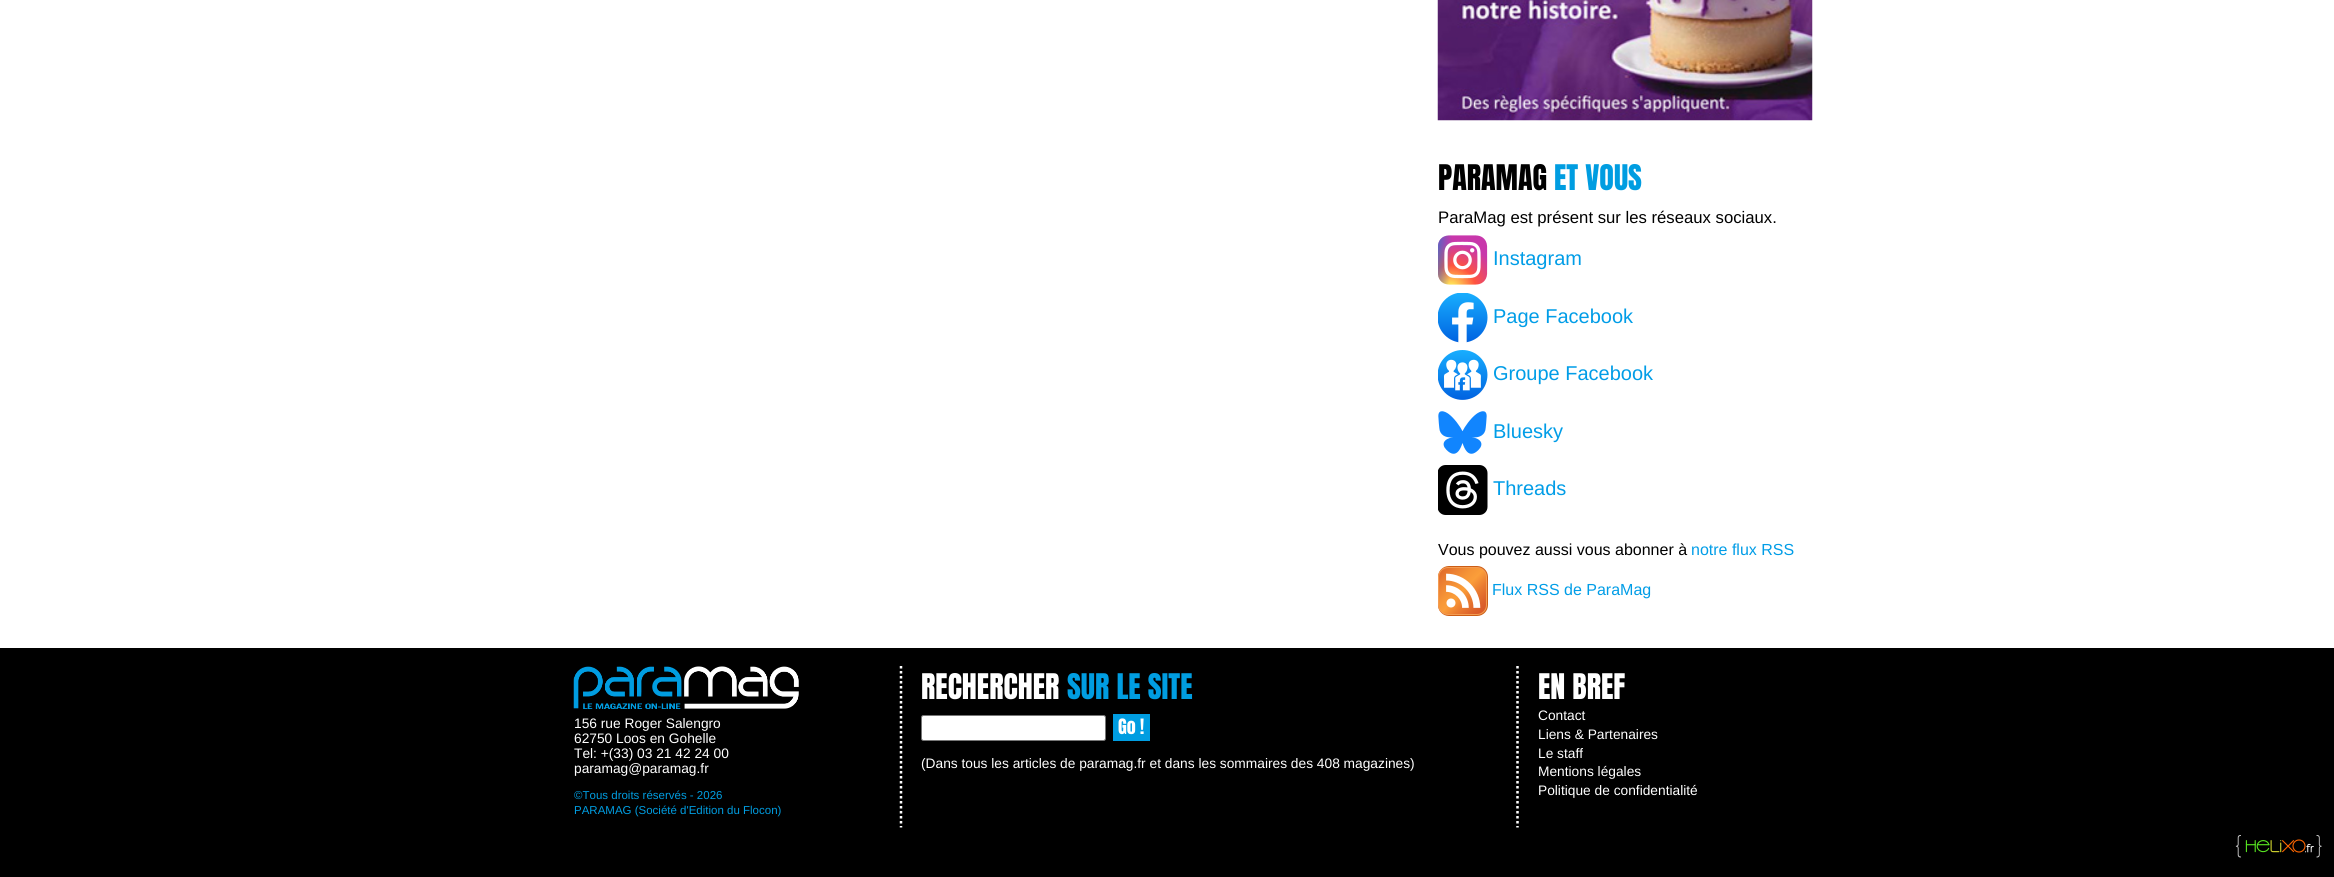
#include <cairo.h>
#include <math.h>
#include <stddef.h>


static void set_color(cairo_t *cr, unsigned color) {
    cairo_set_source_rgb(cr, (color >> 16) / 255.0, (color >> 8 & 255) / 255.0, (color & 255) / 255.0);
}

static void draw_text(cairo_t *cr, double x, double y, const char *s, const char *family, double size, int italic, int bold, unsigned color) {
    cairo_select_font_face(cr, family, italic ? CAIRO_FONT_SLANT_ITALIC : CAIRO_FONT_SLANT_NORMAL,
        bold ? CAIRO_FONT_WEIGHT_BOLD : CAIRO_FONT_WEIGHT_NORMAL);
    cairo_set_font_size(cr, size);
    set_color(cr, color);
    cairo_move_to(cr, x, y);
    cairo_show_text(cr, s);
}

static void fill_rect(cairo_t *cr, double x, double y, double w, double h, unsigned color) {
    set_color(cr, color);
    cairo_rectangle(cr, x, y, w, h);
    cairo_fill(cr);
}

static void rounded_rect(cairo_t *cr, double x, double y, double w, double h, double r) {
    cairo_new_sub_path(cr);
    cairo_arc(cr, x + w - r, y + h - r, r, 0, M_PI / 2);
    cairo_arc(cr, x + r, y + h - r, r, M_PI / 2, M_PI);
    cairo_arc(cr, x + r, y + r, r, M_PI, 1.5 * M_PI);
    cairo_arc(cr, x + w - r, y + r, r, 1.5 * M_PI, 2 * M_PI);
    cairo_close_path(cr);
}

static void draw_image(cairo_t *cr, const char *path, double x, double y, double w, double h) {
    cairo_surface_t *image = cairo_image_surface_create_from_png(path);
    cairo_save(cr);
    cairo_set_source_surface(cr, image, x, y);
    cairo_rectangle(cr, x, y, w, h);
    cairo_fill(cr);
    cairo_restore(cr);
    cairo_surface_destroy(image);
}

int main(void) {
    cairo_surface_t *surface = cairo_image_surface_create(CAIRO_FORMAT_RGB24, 2334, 877);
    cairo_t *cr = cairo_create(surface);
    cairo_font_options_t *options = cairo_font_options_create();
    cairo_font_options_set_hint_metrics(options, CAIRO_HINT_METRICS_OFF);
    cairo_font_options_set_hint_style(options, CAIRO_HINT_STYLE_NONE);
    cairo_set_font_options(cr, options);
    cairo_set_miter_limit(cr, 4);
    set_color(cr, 0xFFFFFF);
    cairo_paint(cr);
    draw_image(cr, "assets/img1.png", 1437, 0, 376, 121);
    draw_text(cr, 1438, 190, "PARAMAG", "Anton", 30, 0, 0, 0x000000);
    draw_text(cr, 1554, 190, "ET VOUS", "Anton", 30, 0, 0, 0x009DE1);
    draw_text(cr, 1438, 223, "ParaMag est présent sur les réseaux sociaux.", "Liberation Sans", 16.7, 0, 0, 0x000000);
    draw_image(cr, "assets/img2.png", 1438, 235, 50, 50);
    draw_text(cr, 1493, 265, "Instagram", "Liberation Sans", 20, 0, 0, 0x019DE7);
    draw_image(cr, "assets/img3.png", 1438, 293, 50, 50);
    draw_text(cr, 1493, 323, "Page Facebook", "Liberation Sans", 20, 0, 0, 0x019DE7);
    draw_image(cr, "assets/img4.png", 1438, 350, 50, 50);
    draw_text(cr, 1493, 380, "Groupe Facebook", "Liberation Sans", 20, 0, 0, 0x019DE7);
    draw_image(cr, "assets/img5.png", 1438, 411, 49, 43);
    draw_text(cr, 1493, 438, "Bluesky", "Liberation Sans", 20, 0, 0, 0x019DE7);
    draw_image(cr, "assets/img6.png", 1438, 465, 50, 50);
    draw_text(cr, 1493, 495, "Threads", "Liberation Sans", 20, 0, 0, 0x019DE7);
    draw_text(cr, 1438, 555, "Vous pouvez aussi vous abonner à", "Liberation Sans", 16, 0, 0, 0x000000);
    draw_text(cr, 1691, 555, "notre flux RSS", "Liberation Sans", 16, 0, 0, 0x019DE7);
    draw_image(cr, "assets/img7.png", 1438, 566, 50, 50);
    draw_text(cr, 1492, 595, "Flux RSS de ParaMag", "Liberation Sans", 16, 0, 0, 0x019DE7);
    fill_rect(cr, 0, 648, 2334, 229, 0x000000);
    draw_image(cr, "assets/img8.png", 573, 666, 226, 43);
    draw_text(cr, 574, 728, "156 rue Roger Salengro", "Liberation Sans", 13.75, 0, 0, 0xFFFFFF);
    draw_text(cr, 574, 743, "62750 Loos en Gohelle", "Liberation Sans", 13.75, 0, 0, 0xFFFFFF);
    draw_text(cr, 574, 758, "Tel: +(33) 03 21 42 24 00", "Liberation Sans", 13.75, 0, 0, 0xFFFFFF);
    draw_text(cr, 574, 773, "paramag@paramag.fr", "Liberation Sans", 13.75, 0, 0, 0xFFFFFF);
    draw_text(cr, 574, 799, "©Tous droits réservés - 2026", "Liberation Sans", 11.5, 0, 0, 0x009DE1);
    draw_text(cr, 574, 814, "PARAMAG (Société d'Edition du Flocon)", "Liberation Sans", 11.5, 0, 0, 0x009DE1);
    cairo_new_path(cr);
    cairo_move_to(cr, 901, 666);
    cairo_line_to(cr, 901, 827.5);
    set_color(cr, 0xFFFFFF);
    cairo_set_line_width(cr, 2.5);
    cairo_set_dash(cr, (double[]){2.5, 2.5}, 2, 0);
    cairo_stroke(cr);
    draw_text(cr, 921, 699, "RECHERCHER", "Anton", 30, 0, 0, 0xFFFFFF);
    draw_text(cr, 1067, 699, "SUR LE SITE", "Anton", 30, 0, 0, 0x009DE1);
    set_color(cr, 0xFFFFFF);
    rounded_rect(cr, 921.5, 715.5, 184, 25, 2);
    cairo_fill_preserve(cr);
    set_color(cr, 0x767676);
    cairo_set_line_width(cr, 1);
    cairo_set_dash(cr, NULL, 0, 0);
    cairo_stroke(cr);
    fill_rect(cr, 1113, 714, 37, 27, 0x009DE1);
    draw_text(cr, 1118, 734, "Go !", "Anton", 18, 0, 0, 0xFFFFFF);
    draw_text(cr, 921, 768, "(Dans tous les articles de paramag.fr et dans les sommaires des 408 magazines)", "Liberation Sans", 13.75, 0, 0, 0xFFFFFF);
    cairo_new_path(cr);
    cairo_move_to(cr, 1517.5, 666);
    cairo_line_to(cr, 1517.5, 827.5);
    cairo_set_line_width(cr, 2.5);
    cairo_set_dash(cr, (double[]){2.5, 2.5}, 2, 0);
    cairo_stroke(cr);
    draw_text(cr, 1538, 699, "EN BREF", "Anton", 30, 0, 0, 0xFFFFFF);
    draw_text(cr, 1538, 720, "Contact", "Liberation Sans", 13.75, 0, 0, 0xFFFFFF);
    draw_text(cr, 1538, 739, "Liens & Partenaires", "Liberation Sans", 13.75, 0, 0, 0xFFFFFF);
    draw_text(cr, 1538, 758, "Le staff", "Liberation Sans", 13.75, 0, 0, 0xFFFFFF);
    draw_text(cr, 1538, 776, "Mentions légales", "Liberation Sans", 13.75, 0, 0, 0xFFFFFF);
    draw_text(cr, 1538, 795, "Politique de confidentialité", "Liberation Sans", 13.75, 0, 0, 0xFFFFFF);
    draw_image(cr, "assets/img9.png", 2235, 835, 87, 23);
    cairo_surface_write_to_png(surface, "output.png");
    cairo_font_options_destroy(options);
    cairo_destroy(cr);
    cairo_surface_destroy(surface);
    return 0;
}
